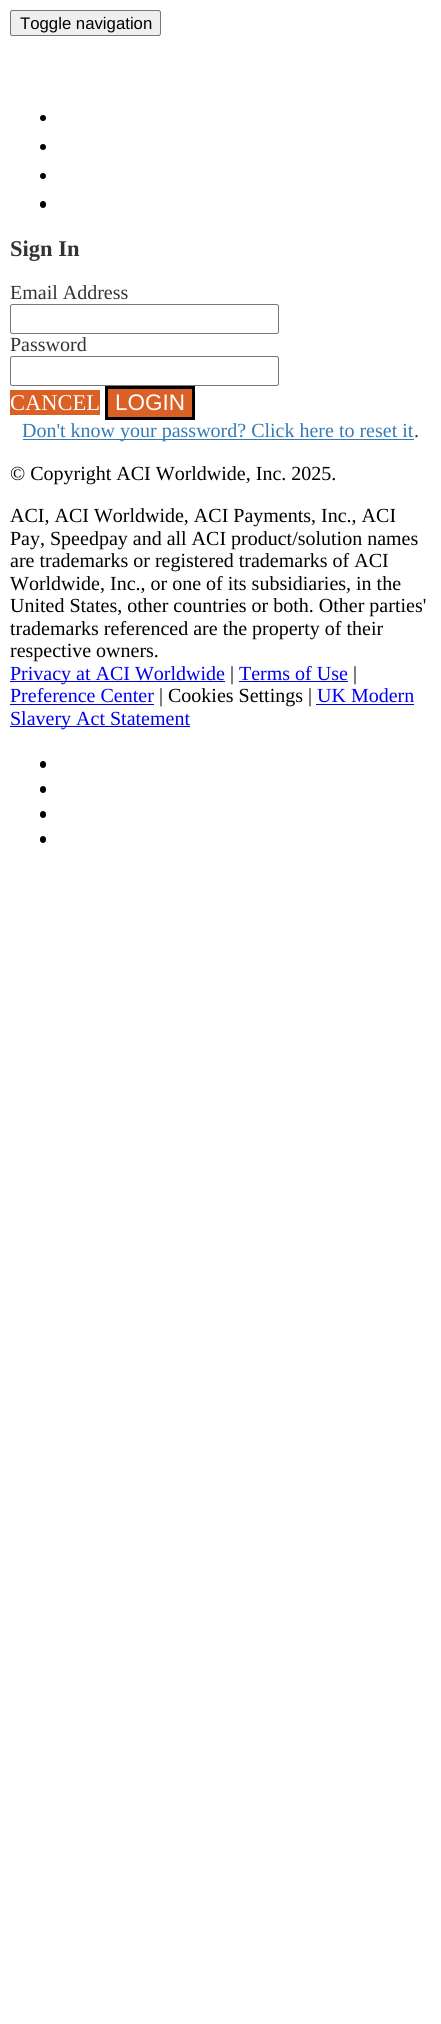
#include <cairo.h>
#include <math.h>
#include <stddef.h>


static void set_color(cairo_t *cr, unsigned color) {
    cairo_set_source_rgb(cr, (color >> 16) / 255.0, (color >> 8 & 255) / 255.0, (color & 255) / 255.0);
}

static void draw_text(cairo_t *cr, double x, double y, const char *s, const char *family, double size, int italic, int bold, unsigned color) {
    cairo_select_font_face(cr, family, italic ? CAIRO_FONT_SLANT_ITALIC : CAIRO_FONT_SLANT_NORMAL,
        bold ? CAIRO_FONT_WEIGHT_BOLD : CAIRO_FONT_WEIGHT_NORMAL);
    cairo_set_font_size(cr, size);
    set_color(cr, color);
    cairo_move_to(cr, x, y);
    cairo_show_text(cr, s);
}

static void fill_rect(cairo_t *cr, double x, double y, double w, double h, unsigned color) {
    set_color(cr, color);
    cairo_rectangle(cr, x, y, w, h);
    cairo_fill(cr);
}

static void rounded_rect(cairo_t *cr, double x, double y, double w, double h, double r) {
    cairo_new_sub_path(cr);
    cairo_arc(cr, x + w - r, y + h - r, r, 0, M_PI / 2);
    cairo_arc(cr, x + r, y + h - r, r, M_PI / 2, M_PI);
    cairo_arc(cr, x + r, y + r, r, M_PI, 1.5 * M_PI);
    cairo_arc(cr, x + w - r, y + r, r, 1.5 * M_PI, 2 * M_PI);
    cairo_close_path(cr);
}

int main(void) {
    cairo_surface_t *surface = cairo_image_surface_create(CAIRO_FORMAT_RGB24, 441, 2024);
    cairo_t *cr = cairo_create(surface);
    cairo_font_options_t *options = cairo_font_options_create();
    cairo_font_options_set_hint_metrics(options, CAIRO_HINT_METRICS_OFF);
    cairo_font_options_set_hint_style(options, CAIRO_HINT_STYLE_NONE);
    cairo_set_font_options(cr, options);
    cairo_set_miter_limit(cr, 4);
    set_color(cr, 0xFFFFFF);
    cairo_paint(cr);
    set_color(cr, 0xEFEFEF);
    rounded_rect(cr, 10.5, 10.5, 150, 25, 2);
    cairo_fill_preserve(cr);
    set_color(cr, 0x767676);
    cairo_set_line_width(cr, 1);
    cairo_stroke(cr);
    draw_text(cr, 20, 29, "Toggle navigation", "Liberation Sans", 16.75, 0, 0, 0x000000);
    cairo_new_path(cr);
    cairo_arc(cr, 43, 118, 3, 0, 2 * M_PI);
    cairo_fill(cr);
    cairo_arc(cr, 43, 147, 3, 0, 2 * M_PI);
    cairo_fill(cr);
    cairo_arc(cr, 43, 176, 3, 0, 2 * M_PI);
    cairo_fill(cr);
    rounded_rect(cr, 40, 201, 6, 7, 3);
    cairo_fill(cr);
    draw_text(cr, 10, 256, "Sign In", "Liberation Serif", 22.5, 0, 1, 0x333333);
    draw_text(cr, 10, 299, "Email Address", "Liberation Serif", 20, 0, 0, 0x333333);
    rounded_rect(cr, 10.5, 304.5, 268, 29, 2);
    set_color(cr, 0x767676);
    cairo_stroke(cr);
    draw_text(cr, 10, 351, "Password", "Liberation Serif", 20, 0, 0, 0x333333);
    rounded_rect(cr, 10.5, 356.5, 268, 29, 2);
    set_color(cr, 0x767676);
    cairo_stroke(cr);
    fill_rect(cr, 10, 390, 90, 25, 0xDB6026);
    draw_text(cr, 10, 410, "CANCEL", "Liberation Serif", 22.5, 0, 0, 0xFFFFFF);
    set_color(cr, 0xDB6026);
    cairo_rectangle(cr, 106.5, 387.5, 87, 31);
    cairo_fill_preserve(cr);
    set_color(cr, 0x000000);
    cairo_set_line_width(cr, 3);
    cairo_stroke(cr);
    draw_text(cr, 115, 410, "LOGIN", "Liberation Sans", 22.5, 0, 0, 0xFFFFFF);
    fill_rect(cr, 23, 439, 391, 1, 0x337AB7);
    draw_text(cr, 22, 437, "Don't know your password? Click here to reset it", "Liberation Serif", 20, 0, 0, 0x337AB7);
    draw_text(cr, 414, 437, ".", "Liberation Serif", 20, 0, 0, 0x333333);
    draw_text(cr, 10, 480, "© Copyright ACI Worldwide, Inc. 2025.", "Liberation Serif", 20, 0, 0, 0x000000);
    draw_text(cr, 10, 522, "ACI, ACI Worldwide, ACI Payments, Inc., ACI", "Liberation Serif", 20, 0, 0, 0x000000);
    draw_text(cr, 10, 545, "Pay, Speedpay and all ACI product/solution names", "Liberation Serif", 20, 0, 0, 0x000000);
    draw_text(cr, 10, 567, "are trademarks or registered trademarks of ACI", "Liberation Serif", 20, 0, 0, 0x000000);
    draw_text(cr, 10, 590, "Worldwide, Inc., or one of its subsidiaries, in the", "Liberation Serif", 20, 0, 0, 0x000000);
    draw_text(cr, 10, 612, "United States, other countries or both. Other parties'", "Liberation Serif", 20, 0, 0, 0x000000);
    draw_text(cr, 10, 635, "trademarks referenced are the property of their", "Liberation Serif", 20, 0, 0, 0x000000);
    draw_text(cr, 10, 657, "respective owners.", "Liberation Serif", 20, 0, 0, 0x000000);
    fill_rect(cr, 10, 681, 215, 1, 0x0000EE);
    draw_text(cr, 10, 680, "Privacy at ACI Worldwide", "Liberation Serif", 20, 0, 0, 0x0000EE);
    draw_text(cr, 230, 680, "|", "Liberation Serif", 20, 0, 0, 0x000000);
    draw_text(cr, 239, 680, "Terms of Use", "Liberation Serif", 20, 0, 0, 0x0000EE);
    fill_rect(cr, 239, 681, 109, 1, 0x0000EE);
    draw_text(cr, 353, 680, "|", "Liberation Serif", 20, 0, 0, 0x000000);
    draw_text(cr, 10, 702, "Preference Center", "Liberation Serif", 20, 0, 0, 0x0000EE);
    fill_rect(cr, 10, 704, 144, 1, 0x0000EE);
    draw_text(cr, 159, 702, "| Cookies Settings |", "Liberation Serif", 20, 0, 0, 0x000000);
    draw_text(cr, 317, 702, "UK Modern", "Liberation Serif", 20, 0, 0, 0x0000EE);
    fill_rect(cr, 316, 704, 98, 1, 0x0000EE);
    fill_rect(cr, 10, 726, 180, 1, 0x0000EE);
    draw_text(cr, 10, 725, "Slavery Act Statement", "Liberation Serif", 20, 0, 0, 0x0000EE);
    set_color(cr, 0x000000);
    rounded_rect(cr, 40, 761, 6, 7, 3);
    cairo_fill(cr);
    rounded_rect(cr, 40, 786, 6, 7, 3);
    cairo_fill(cr);
    rounded_rect(cr, 40, 811, 6, 7, 3);
    cairo_fill(cr);
    rounded_rect(cr, 40, 836, 6, 7, 3);
    cairo_fill(cr);
    cairo_surface_write_to_png(surface, "output.png");
    cairo_font_options_destroy(options);
    cairo_destroy(cr);
    cairo_surface_destroy(surface);
    return 0;
}
